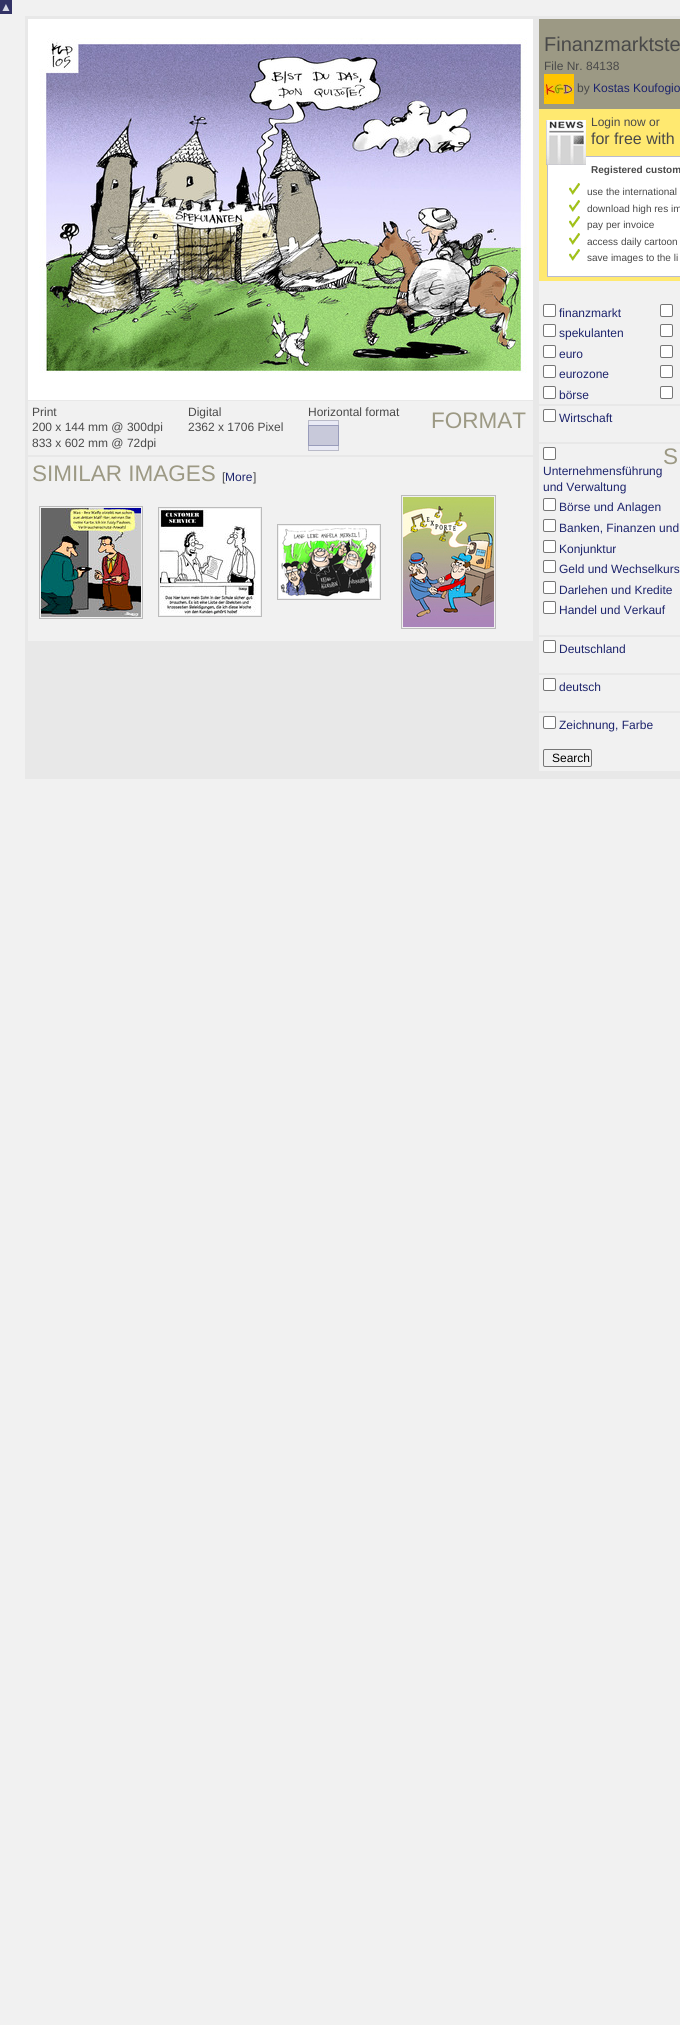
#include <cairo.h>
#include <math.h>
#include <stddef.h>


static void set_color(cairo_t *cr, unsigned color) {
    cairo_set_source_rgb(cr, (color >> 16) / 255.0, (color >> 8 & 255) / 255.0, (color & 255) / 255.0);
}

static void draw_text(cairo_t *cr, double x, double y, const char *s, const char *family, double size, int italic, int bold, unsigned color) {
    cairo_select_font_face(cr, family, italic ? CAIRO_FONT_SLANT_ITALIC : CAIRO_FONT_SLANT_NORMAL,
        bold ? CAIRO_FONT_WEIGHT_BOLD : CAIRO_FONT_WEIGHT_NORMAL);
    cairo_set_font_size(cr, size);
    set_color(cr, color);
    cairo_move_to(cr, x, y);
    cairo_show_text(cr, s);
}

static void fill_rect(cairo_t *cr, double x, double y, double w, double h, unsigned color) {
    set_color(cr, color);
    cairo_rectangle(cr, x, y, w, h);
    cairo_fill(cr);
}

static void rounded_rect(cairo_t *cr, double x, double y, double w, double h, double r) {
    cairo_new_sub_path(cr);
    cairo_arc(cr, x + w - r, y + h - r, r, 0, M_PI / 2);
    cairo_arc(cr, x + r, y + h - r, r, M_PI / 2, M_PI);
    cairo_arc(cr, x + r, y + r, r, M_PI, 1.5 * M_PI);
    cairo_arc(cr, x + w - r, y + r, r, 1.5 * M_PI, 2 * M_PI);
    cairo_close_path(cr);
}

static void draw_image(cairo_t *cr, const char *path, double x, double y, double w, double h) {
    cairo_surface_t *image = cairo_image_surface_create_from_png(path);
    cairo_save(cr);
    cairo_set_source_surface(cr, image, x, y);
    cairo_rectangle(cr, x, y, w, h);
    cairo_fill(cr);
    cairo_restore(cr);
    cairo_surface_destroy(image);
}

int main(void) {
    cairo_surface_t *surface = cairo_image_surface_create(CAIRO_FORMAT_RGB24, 680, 2025);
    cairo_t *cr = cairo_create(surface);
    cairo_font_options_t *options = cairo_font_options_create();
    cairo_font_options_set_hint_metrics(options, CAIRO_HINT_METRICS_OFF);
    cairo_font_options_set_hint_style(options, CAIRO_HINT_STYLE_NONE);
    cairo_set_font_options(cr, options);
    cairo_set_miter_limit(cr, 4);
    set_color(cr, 0xF1F1F1);
    cairo_paint(cr);
    fill_rect(cr, 0, 0, 12, 14, 0x333366);
    draw_text(cr, 0, 11, "▲", "Liberation Sans", 12, 0, 0, 0xD8D9E5);
    fill_rect(cr, 25, 16, 655, 763, 0xE8E8E8);
    fill_rect(cr, 28, 19, 505, 381, 0xFFFFFF);
    draw_image(cr, "assets/img1.png", 39, 38, 488, 335);
    fill_rect(cr, 28, 401, 505, 54, 0xF1F1F1);
    draw_text(cr, 32, 416, "Print", "Liberation Sans", 12, 0, 0, 0x494949);
    draw_text(cr, 32, 431, "200 x 144 mm @ 300dpi", "Liberation Sans", 12, 0, 0, 0x494949);
    draw_text(cr, 32, 447, "833 x 602 mm @ 72dpi", "Liberation Sans", 12, 0, 0, 0x494949);
    draw_text(cr, 188, 416, "Digital", "Liberation Sans", 12, 0, 0, 0x494949);
    draw_text(cr, 188, 431, "2362 x 1706 Pixel", "Liberation Sans", 12, 0, 0, 0x494949);
    draw_text(cr, 308, 416, "Horizontal format", "Liberation Sans", 12, 0, 0, 0x494949);
    draw_image(cr, "assets/img2.png", 308, 420, 31, 31);
    draw_text(cr, 431, 428, "FORMAT", "Liberation Sans", 22.5, 0, 0, 0x9C9984);
    fill_rect(cr, 28, 457, 505, 184, 0xF1F1F1);
    draw_text(cr, 32, 481, "SIMILAR IMAGES", "Liberation Sans", 22.5, 0, 0, 0x9C9984);
    draw_text(cr, 222, 481, "[", "Liberation Sans", 12, 0, 0, 0x494949);
    draw_text(cr, 225, 481, "More", "Liberation Sans", 12, 0, 0, 0x1D246C);
    draw_text(cr, 253, 481, "]", "Liberation Sans", 12, 0, 0, 0x494949);
    cairo_rectangle(cr, 39.5, 506.5, 103, 112);
    set_color(cr, 0xBBBBBB);
    cairo_set_line_width(cr, 1);
    cairo_stroke(cr);
    draw_image(cr, "assets/img3.png", 41, 508, 100, 109);
    cairo_rectangle(cr, 158.5, 507.5, 103, 109);
    cairo_stroke(cr);
    draw_image(cr, "assets/img4.png", 160, 509, 100, 106);
    cairo_rectangle(cr, 277.5, 524.5, 103, 75);
    cairo_stroke(cr);
    draw_image(cr, "assets/img5.png", 279, 526, 100, 72);
    cairo_rectangle(cr, 401.5, 495.5, 94, 133);
    cairo_stroke(cr);
    draw_image(cr, "assets/img6.png", 403, 497, 91, 130);
    fill_rect(cr, 539, 19, 141, 90, 0x9C9984);
    draw_text(cr, 544, 51, "Finanzmarktste", "Liberation Sans", 20, 0, 0, 0x494949);
    draw_text(cr, 544, 70, "File Nr. 84138", "Liberation Sans", 12, 0, 0, 0x494949);
    draw_image(cr, "assets/img7.png", 544, 74, 30, 30);
    draw_text(cr, 577, 92, "by", "Liberation Sans", 12, 0, 0, 0x494949);
    draw_text(cr, 593, 92, "Kostas Koufogio", "Liberation Sans", 12, 0, 0, 0x1D246C);
    fill_rect(cr, 539, 109, 141, 172, 0xFFE970);
    set_color(cr, 0xFFFFFF);
    cairo_rectangle(cr, 547.5, 156.5, 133, 120);
    cairo_fill_preserve(cr);
    set_color(cr, 0xB9BBD0);
    cairo_stroke(cr);
    draw_image(cr, "assets/img8.png", 546, 120, 40, 45);
    draw_text(cr, 591, 126, "Login now or", "Liberation Sans", 12, 0, 0, 0x494949);
    draw_text(cr, 591, 144, "for free with", "Liberation Sans", 16, 0, 0, 0x494949);
    draw_text(cr, 591, 173, "Registered custom", "Liberation Sans", 10, 0, 1, 0x494949);
    draw_image(cr, "assets/img9.png", 569, 183, 11, 12);
    draw_text(cr, 587, 195, "use the international", "Liberation Sans", 10, 0, 0, 0x494949);
    draw_image(cr, "assets/img9.png", 569, 200, 11, 12);
    draw_text(cr, 587, 212, "download high res im", "Liberation Sans", 10, 0, 0, 0x494949);
    draw_image(cr, "assets/img9.png", 569, 216, 11, 12);
    draw_text(cr, 587, 228, "pay per invoice", "Liberation Sans", 10, 0, 0, 0x494949);
    draw_image(cr, "assets/img9.png", 569, 233, 11, 12);
    draw_text(cr, 587, 245, "access daily cartoon", "Liberation Sans", 10, 0, 0, 0x494949);
    draw_image(cr, "assets/img9.png", 569, 249, 11, 12);
    draw_text(cr, 587, 261, "save images to the li", "Liberation Sans", 10, 0, 0, 0x494949);
    fill_rect(cr, 539, 281, 141, 490, 0xF1F1F1);
    set_color(cr, 0xFFFFFF);
    rounded_rect(cr, 543.5, 304.5, 12, 12, 1.5);
    cairo_fill_preserve(cr);
    set_color(cr, 0x767676);
    cairo_stroke(cr);
    draw_text(cr, 559, 317, "finanzmarkt", "Liberation Sans", 12, 0, 0, 0x1D246C);
    set_color(cr, 0xFFFFFF);
    rounded_rect(cr, 660.5, 304.5, 12, 12, 1.5);
    cairo_fill_preserve(cr);
    set_color(cr, 0x767676);
    cairo_stroke(cr);
    set_color(cr, 0xFFFFFF);
    rounded_rect(cr, 543.5, 324.5, 12, 12, 1.5);
    cairo_fill_preserve(cr);
    set_color(cr, 0x767676);
    cairo_stroke(cr);
    draw_text(cr, 559, 337, "spekulanten", "Liberation Sans", 12, 0, 0, 0x1D246C);
    set_color(cr, 0xFFFFFF);
    rounded_rect(cr, 660.5, 324.5, 12, 12, 1.5);
    cairo_fill_preserve(cr);
    set_color(cr, 0x767676);
    cairo_stroke(cr);
    set_color(cr, 0xFFFFFF);
    rounded_rect(cr, 543.5, 345.5, 12, 12, 1.5);
    cairo_fill_preserve(cr);
    set_color(cr, 0x767676);
    cairo_stroke(cr);
    draw_text(cr, 559, 358, "euro", "Liberation Sans", 12, 0, 0, 0x1D246C);
    set_color(cr, 0xFFFFFF);
    rounded_rect(cr, 660.5, 345.5, 12, 12, 1.5);
    cairo_fill_preserve(cr);
    set_color(cr, 0x767676);
    cairo_stroke(cr);
    set_color(cr, 0xFFFFFF);
    rounded_rect(cr, 543.5, 365.5, 12, 12, 1.5);
    cairo_fill_preserve(cr);
    set_color(cr, 0x767676);
    cairo_stroke(cr);
    draw_text(cr, 559, 378, "eurozone", "Liberation Sans", 12, 0, 0, 0x1D246C);
    set_color(cr, 0xFFFFFF);
    rounded_rect(cr, 660.5, 365.5, 12, 12, 1.5);
    cairo_fill_preserve(cr);
    set_color(cr, 0x767676);
    cairo_stroke(cr);
    set_color(cr, 0xFFFFFF);
    rounded_rect(cr, 543.5, 386.5, 12, 12, 1.5);
    cairo_fill_preserve(cr);
    set_color(cr, 0x767676);
    cairo_stroke(cr);
    draw_text(cr, 559, 399, "börse", "Liberation Sans", 12, 0, 0, 0x1D246C);
    set_color(cr, 0xFFFFFF);
    rounded_rect(cr, 660.5, 386.5, 12, 12, 1.5);
    cairo_fill_preserve(cr);
    set_color(cr, 0x767676);
    cairo_stroke(cr);
    fill_rect(cr, 539, 404, 141, 2, 0xE8E8E8);
    set_color(cr, 0xFFFFFF);
    rounded_rect(cr, 543.5, 409.5, 12, 12, 1.5);
    cairo_fill_preserve(cr);
    set_color(cr, 0x767676);
    cairo_stroke(cr);
    draw_text(cr, 559, 422, "Wirtschaft", "Liberation Sans", 12, 0, 0, 0x1D246C);
    fill_rect(cr, 539, 442, 141, 2, 0xE8E8E8);
    set_color(cr, 0xFFFFFF);
    rounded_rect(cr, 543.5, 447.5, 12, 12, 1.5);
    cairo_fill_preserve(cr);
    set_color(cr, 0x767676);
    cairo_stroke(cr);
    draw_text(cr, 663, 464, "S", "Liberation Sans", 22.5, 0, 0, 0x9C9984);
    draw_text(cr, 543, 475, "Unternehmensführung", "Liberation Sans", 12, 0, 0, 0x1D246C);
    draw_text(cr, 543, 491, "und Verwaltung", "Liberation Sans", 12, 0, 0, 0x1D246C);
    set_color(cr, 0xFFFFFF);
    rounded_rect(cr, 543.5, 498.5, 12, 12, 1.5);
    cairo_fill_preserve(cr);
    set_color(cr, 0x767676);
    cairo_stroke(cr);
    draw_text(cr, 559, 511, "Börse und Anlagen", "Liberation Sans", 12, 0, 0, 0x1D246C);
    set_color(cr, 0xFFFFFF);
    rounded_rect(cr, 543.5, 519.5, 12, 12, 1.5);
    cairo_fill_preserve(cr);
    set_color(cr, 0x767676);
    cairo_stroke(cr);
    draw_text(cr, 559, 532, "Banken, Finanzen und", "Liberation Sans", 12, 0, 0, 0x1D246C);
    set_color(cr, 0xFFFFFF);
    rounded_rect(cr, 543.5, 540.5, 12, 12, 1.5);
    cairo_fill_preserve(cr);
    set_color(cr, 0x767676);
    cairo_stroke(cr);
    draw_text(cr, 559, 553, "Konjunktur", "Liberation Sans", 12, 0, 0, 0x1D246C);
    set_color(cr, 0xFFFFFF);
    rounded_rect(cr, 543.5, 560.5, 12, 12, 1.5);
    cairo_fill_preserve(cr);
    set_color(cr, 0x767676);
    cairo_stroke(cr);
    draw_text(cr, 559, 573, "Geld und Wechselkurs", "Liberation Sans", 12, 0, 0, 0x1D246C);
    set_color(cr, 0xFFFFFF);
    rounded_rect(cr, 543.5, 581.5, 12, 12, 1.5);
    cairo_fill_preserve(cr);
    set_color(cr, 0x767676);
    cairo_stroke(cr);
    draw_text(cr, 559, 594, "Darlehen und Kredite", "Liberation Sans", 12, 0, 0, 0x1D246C);
    set_color(cr, 0xFFFFFF);
    rounded_rect(cr, 543.5, 601.5, 12, 12, 1.5);
    cairo_fill_preserve(cr);
    set_color(cr, 0x767676);
    cairo_stroke(cr);
    draw_text(cr, 559, 614, "Handel und Verkauf", "Liberation Sans", 12, 0, 0, 0x1D246C);
    fill_rect(cr, 539, 635, 141, 2, 0xE8E8E8);
    set_color(cr, 0xFFFFFF);
    rounded_rect(cr, 543.5, 640.5, 12, 12, 1.5);
    cairo_fill_preserve(cr);
    set_color(cr, 0x767676);
    cairo_stroke(cr);
    draw_text(cr, 559, 653, "Deutschland", "Liberation Sans", 12, 0, 0, 0x1D246C);
    fill_rect(cr, 539, 673, 141, 2, 0xE8E8E8);
    set_color(cr, 0xFFFFFF);
    rounded_rect(cr, 543.5, 678.5, 12, 12, 1.5);
    cairo_fill_preserve(cr);
    set_color(cr, 0x767676);
    cairo_stroke(cr);
    draw_text(cr, 559, 691, "deutsch", "Liberation Sans", 12, 0, 0, 0x1D246C);
    fill_rect(cr, 539, 711, 141, 2, 0xE8E8E8);
    set_color(cr, 0xFFFFFF);
    rounded_rect(cr, 543.5, 716.5, 12, 12, 1.5);
    cairo_fill_preserve(cr);
    set_color(cr, 0x767676);
    cairo_stroke(cr);
    draw_text(cr, 559, 729, "Zeichnung, Farbe", "Liberation Sans", 12, 0, 0, 0x1D246C);
    rounded_rect(cr, 543.5, 749.5, 48, 17, 1.5);
    set_color(cr, 0x767676);
    cairo_stroke(cr);
    draw_text(cr, 552, 762, "Search", "Liberation Sans", 12, 0, 0, 0x000000);
    cairo_surface_write_to_png(surface, "output.png");
    cairo_font_options_destroy(options);
    cairo_destroy(cr);
    cairo_surface_destroy(surface);
    return 0;
}
